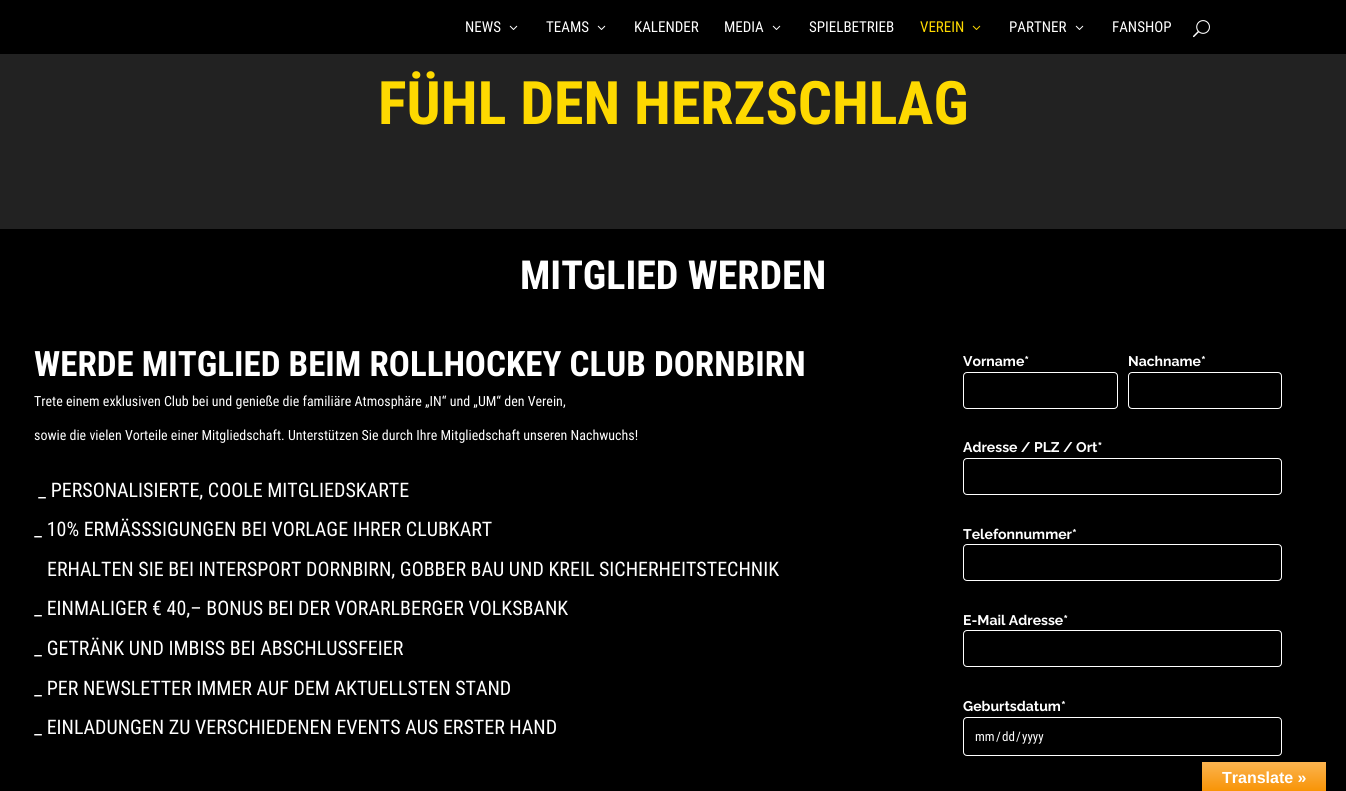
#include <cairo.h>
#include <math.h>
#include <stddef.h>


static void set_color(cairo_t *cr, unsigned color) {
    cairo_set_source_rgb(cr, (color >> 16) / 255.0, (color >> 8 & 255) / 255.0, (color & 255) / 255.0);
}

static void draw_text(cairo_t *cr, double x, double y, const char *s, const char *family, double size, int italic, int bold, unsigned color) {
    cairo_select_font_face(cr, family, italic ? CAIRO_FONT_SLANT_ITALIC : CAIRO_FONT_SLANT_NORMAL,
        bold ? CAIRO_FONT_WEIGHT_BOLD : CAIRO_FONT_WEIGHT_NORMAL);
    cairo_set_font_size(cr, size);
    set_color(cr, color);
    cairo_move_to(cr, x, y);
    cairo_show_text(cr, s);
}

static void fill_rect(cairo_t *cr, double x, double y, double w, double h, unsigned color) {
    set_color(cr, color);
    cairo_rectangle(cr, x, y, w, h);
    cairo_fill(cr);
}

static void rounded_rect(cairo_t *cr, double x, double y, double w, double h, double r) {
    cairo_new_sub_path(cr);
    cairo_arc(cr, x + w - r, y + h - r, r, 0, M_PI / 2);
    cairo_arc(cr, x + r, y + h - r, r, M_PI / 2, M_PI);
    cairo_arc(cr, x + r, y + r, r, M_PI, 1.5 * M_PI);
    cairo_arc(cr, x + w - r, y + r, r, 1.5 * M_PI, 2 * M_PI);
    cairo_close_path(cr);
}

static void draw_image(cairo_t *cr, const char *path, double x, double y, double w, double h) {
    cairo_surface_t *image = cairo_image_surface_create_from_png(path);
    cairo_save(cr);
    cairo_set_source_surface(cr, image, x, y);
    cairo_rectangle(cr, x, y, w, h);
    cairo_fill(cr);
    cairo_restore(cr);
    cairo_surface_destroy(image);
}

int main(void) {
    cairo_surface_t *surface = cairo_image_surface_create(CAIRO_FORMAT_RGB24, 1346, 791);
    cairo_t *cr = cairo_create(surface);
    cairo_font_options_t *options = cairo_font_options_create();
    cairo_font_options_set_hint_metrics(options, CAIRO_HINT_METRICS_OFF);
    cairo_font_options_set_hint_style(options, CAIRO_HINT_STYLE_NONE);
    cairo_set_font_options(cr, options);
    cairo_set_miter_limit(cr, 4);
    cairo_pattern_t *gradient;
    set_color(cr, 0x000000);
    cairo_paint(cr);
    draw_text(cr, 465, 32, "NEWS", "Roboto Condensed", 15, 0, 0, 0xFFFFFF);
    draw_image(cr, "assets/img1.png", 509, 25, 9, 5);
    draw_text(cr, 546, 32, "TEAMS", "Roboto Condensed", 15, 0, 0, 0xFFFFFF);
    draw_image(cr, "assets/img1.png", 597, 25, 9, 5);
    draw_text(cr, 634, 32, "KALENDER", "Roboto Condensed", 15, 0, 0, 0xFFFFFF);
    draw_text(cr, 724, 32, "MEDIA", "Roboto Condensed", 15, 0, 0, 0xFFFFFF);
    draw_image(cr, "assets/img1.png", 772, 25, 9, 5);
    draw_text(cr, 809, 32, "SPIELBETRIEB", "Roboto Condensed", 15, 0, 0, 0xFFFFFF);
    draw_text(cr, 920, 32, "VEREIN", "Roboto Condensed", 15, 0, 0, 0xFED900);
    draw_image(cr, "assets/img2.png", 972, 25, 9, 5);
    draw_text(cr, 1009, 32, "PARTNER", "Roboto Condensed", 15, 0, 0, 0xFFFFFF);
    draw_image(cr, "assets/img1.png", 1075, 25, 9, 5);
    draw_text(cr, 1112, 32, "FANSHOP", "Roboto Condensed", 15, 0, 0, 0xFFFFFF);
    draw_image(cr, "assets/img3.png", 1193, 20, 17, 18);
    fill_rect(cr, 0, 54, 1346, 175, 0x222222);
    draw_text(cr, 378, 124, "FÜHL DEN HERZSCHLAG", "Roboto Condensed", 60, 0, 1, 0xFED900);
    draw_text(cr, 520, 289, "MITGLIED WERDEN", "Roboto Condensed", 40, 0, 1, 0xFFFFFF);
    draw_text(cr, 34, 376, "WERDE MITGLIED BEIM ROLLHOCKEY CLUB DORNBIRN", "Roboto Condensed", 35, 0, 1, 0xFFFFFF);
    draw_text(cr, 34, 406, "Trete einem exklusiven Club bei und genieße die familiäre Atmosphäre „IN“ und „UM“ den Verein,", "Roboto Condensed", 14, 0, 0, 0xFFFFFF);
    draw_text(cr, 34, 440, "sowie die vielen Vorteile einer Mitgliedschaft. Unterstützen Sie durch Ihre Mitgliedschaft unseren Nachwuchs!", "Roboto Condensed", 14, 0, 0, 0xFFFFFF);
    draw_text(cr, 38, 497, "_ PERSONALISIERTE, COOLE MITGLIEDSKARTE", "Roboto Condensed", 20, 0, 0, 0xFFFFFF);
    draw_text(cr, 34, 536, "_ 10% ERMÄSSSIGUNGEN BEI VORLAGE IHRER CLUBKART", "Roboto Condensed", 20, 0, 0, 0xFFFFFF);
    draw_text(cr, 47, 576, "ERHALTEN SIE BEI INTERSPORT DORNBIRN, GOBBER BAU UND KREIL SICHERHEITSTECHNIK", "Roboto Condensed", 20, 0, 0, 0xFFFFFF);
    draw_text(cr, 34, 615, "_ EINMALIGER € 40,– BONUS BEI DER VORARLBERGER VOLKSBANK", "Roboto Condensed", 20, 0, 0, 0xFFFFFF);
    draw_text(cr, 34, 655, "_ GETRÄNK UND IMBISS BEI ABSCHLUSSFEIER", "Roboto Condensed", 20, 0, 0, 0xFFFFFF);
    draw_text(cr, 34, 695, "_ PER NEWSLETTER IMMER AUF DEM AKTUELLSTEN STAND", "Roboto Condensed", 20, 0, 0, 0xFFFFFF);
    draw_text(cr, 34, 734, "_ EINLADUNGEN ZU VERSCHIEDENEN EVENTS AUS ERSTER HAND", "Roboto Condensed", 20, 0, 0, 0xFFFFFF);
    draw_text(cr, 963, 366, "Vorname*", "Raleway", 14, 0, 1, 0xFFFFFF);
    rounded_rect(cr, 963.5, 372.5, 154, 36, 3.5);
    cairo_set_line_width(cr, 1);
    cairo_stroke(cr);
    draw_text(cr, 1128, 366, "Nachname*", "Raleway", 14, 0, 1, 0xFFFFFF);
    rounded_rect(cr, 1128.5, 372.5, 153, 36, 3.5);
    cairo_stroke(cr);
    draw_text(cr, 963, 452, "Adresse / PLZ / Ort*", "Raleway", 14, 0, 1, 0xFFFFFF);
    rounded_rect(cr, 963.5, 458.5, 318, 36, 3.5);
    cairo_stroke(cr);
    draw_text(cr, 963, 539, "Telefonnummer*", "Raleway", 14, 0, 1, 0xFFFFFF);
    rounded_rect(cr, 963.5, 544.5, 318, 36, 3.5);
    cairo_stroke(cr);
    draw_text(cr, 963, 625, "E-Mail Adresse*", "Raleway", 14, 0, 1, 0xFFFFFF);
    rounded_rect(cr, 963.5, 630.5, 318, 36, 3.5);
    cairo_stroke(cr);
    draw_text(cr, 963, 711, "Geburtsdatum*", "Raleway", 14, 0, 1, 0xFFFFFF);
    rounded_rect(cr, 963.5, 717.5, 318, 38, 3.5);
    cairo_stroke(cr);
    draw_text(cr, 975, 741, "mm", "Roboto Condensed", 13, 0, 0, 0xFFFFFF);
    draw_text(cr, 996, 741, "/", "Roboto Condensed", 13, 0, 0, 0xFFFFFF);
    draw_text(cr, 1002, 741, "dd", "Roboto Condensed", 13, 0, 0, 0xFFFFFF);
    draw_text(cr, 1016, 741, "/", "Roboto Condensed", 13, 0, 0, 0xFFFFFF);
    draw_text(cr, 1022, 741, "yyyy", "Roboto Condensed", 13, 0, 0, 0xFFFFFF);
    gradient = cairo_pattern_create_linear(1264, 762, 1264, 791);
    cairo_pattern_add_color_stop_rgba(gradient, 0, 0.984, 0.706, 0.314, 1);
    cairo_pattern_add_color_stop_rgba(gradient, 1, 0.973, 0.58, 0.024, 1);
    cairo_set_source(cr, gradient);
    cairo_pattern_destroy(gradient);
    cairo_rectangle(cr, 1202, 762, 124, 29);
    cairo_fill(cr);
    draw_text(cr, 1222, 783, "Translate »", "Liberation Sans", 16, 0, 1, 0xFFFFFF);
    cairo_surface_write_to_png(surface, "output.png");
    cairo_font_options_destroy(options);
    cairo_destroy(cr);
    cairo_surface_destroy(surface);
    return 0;
}
